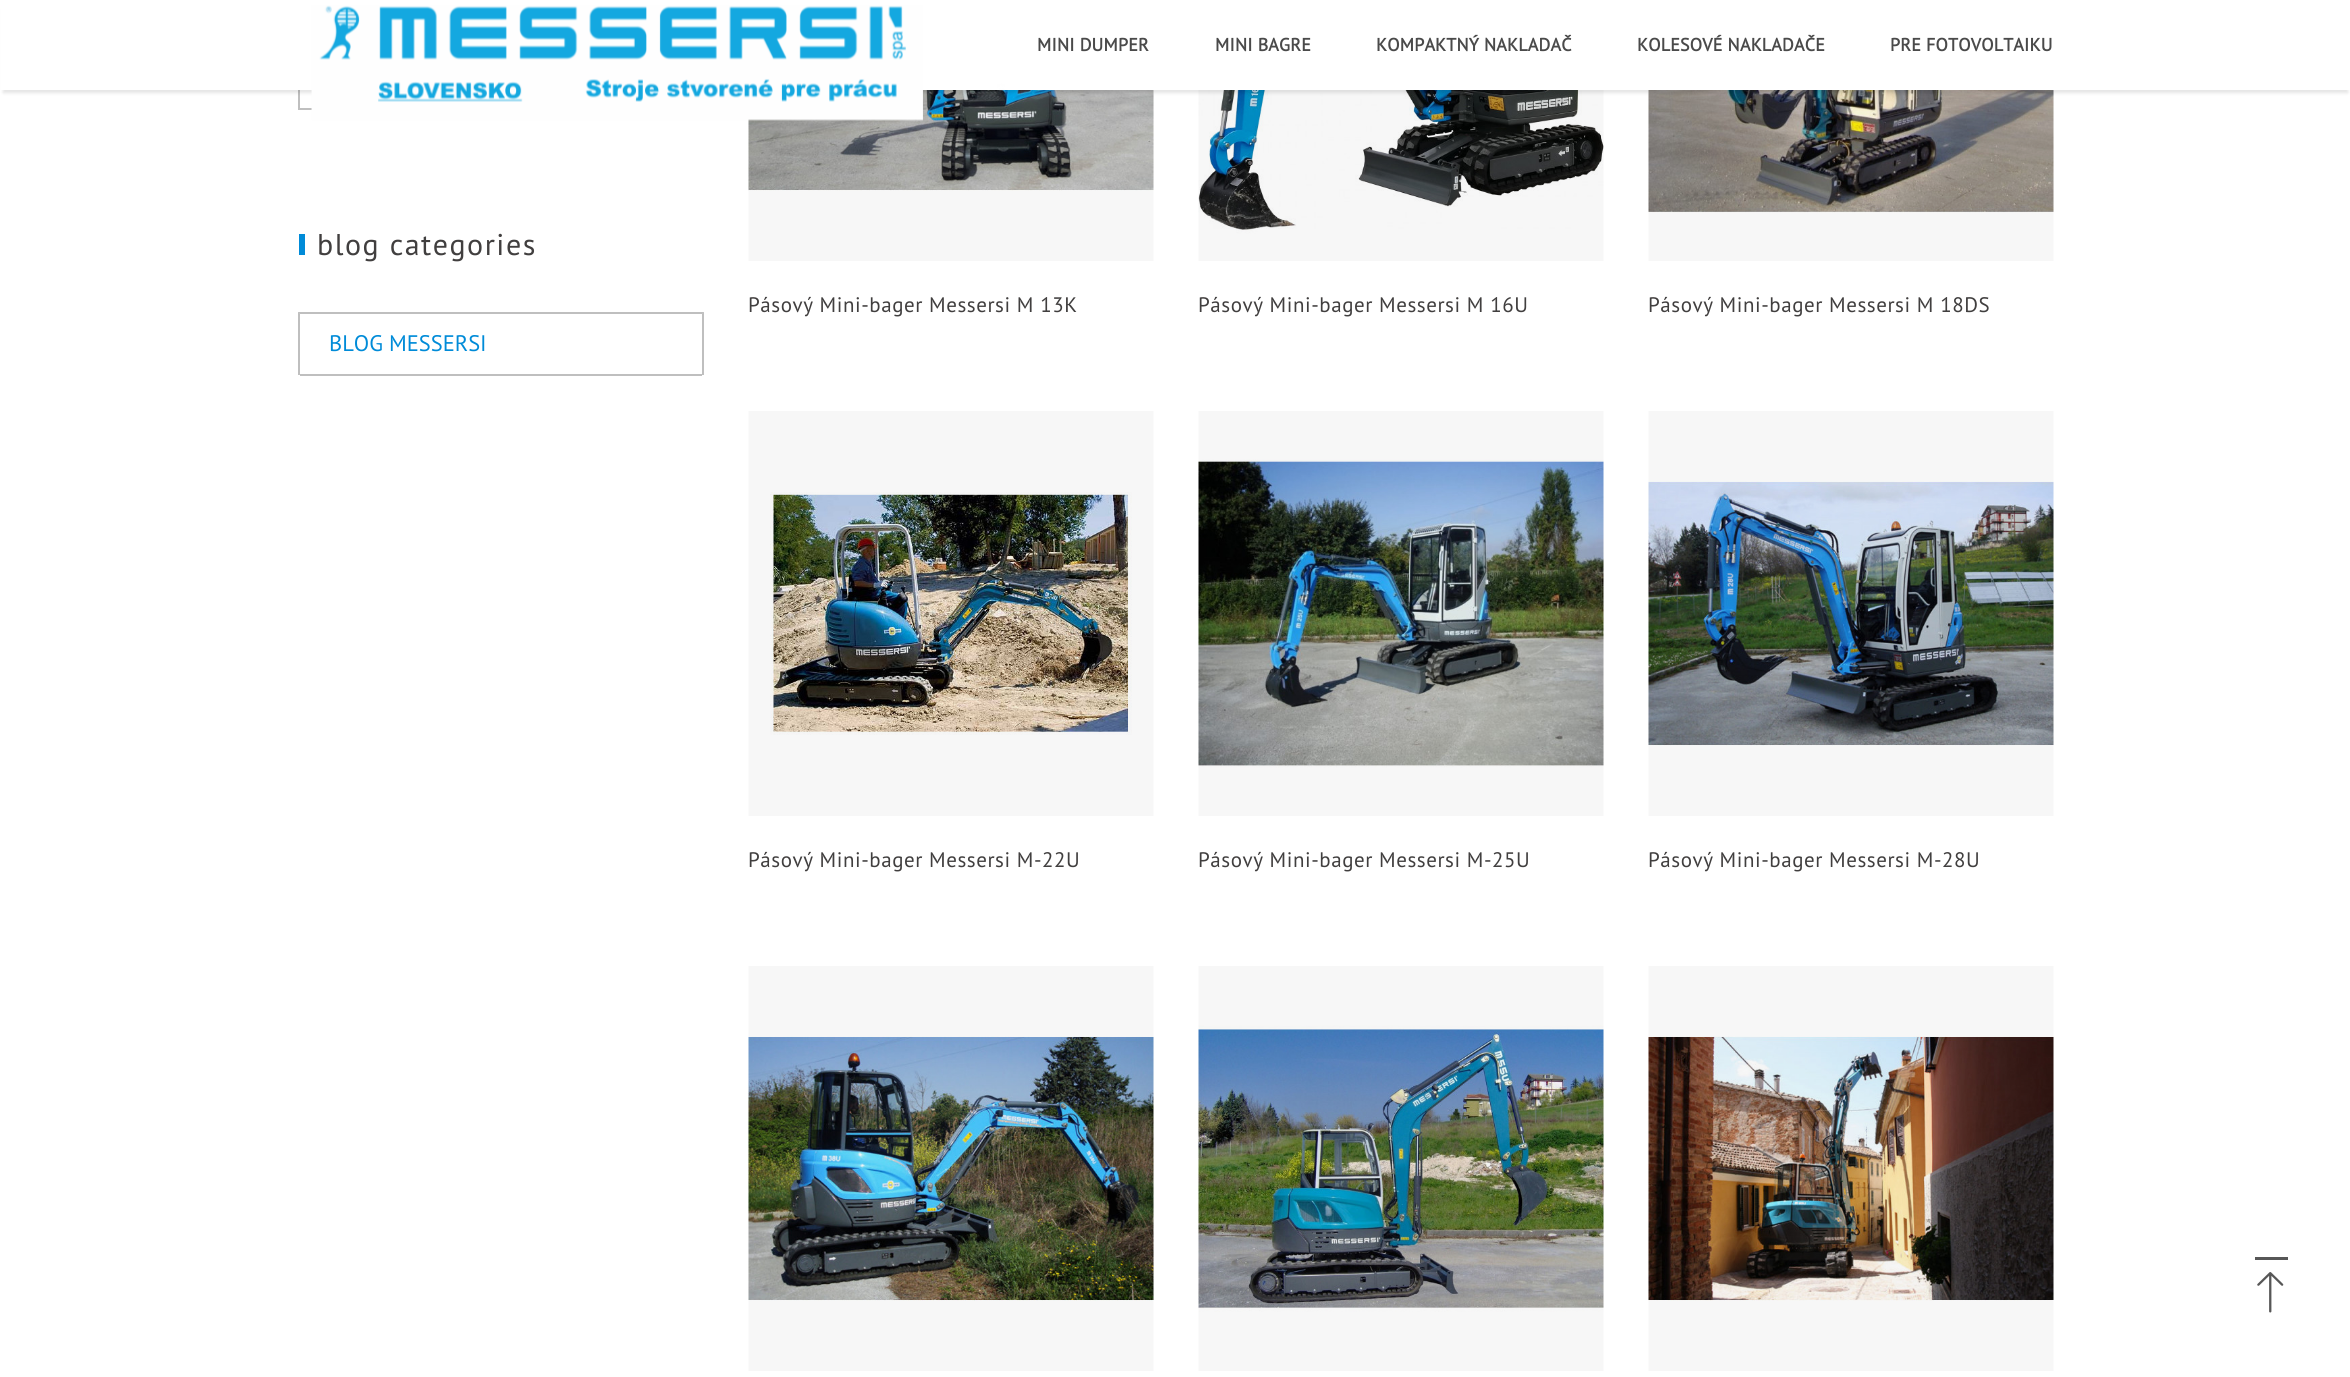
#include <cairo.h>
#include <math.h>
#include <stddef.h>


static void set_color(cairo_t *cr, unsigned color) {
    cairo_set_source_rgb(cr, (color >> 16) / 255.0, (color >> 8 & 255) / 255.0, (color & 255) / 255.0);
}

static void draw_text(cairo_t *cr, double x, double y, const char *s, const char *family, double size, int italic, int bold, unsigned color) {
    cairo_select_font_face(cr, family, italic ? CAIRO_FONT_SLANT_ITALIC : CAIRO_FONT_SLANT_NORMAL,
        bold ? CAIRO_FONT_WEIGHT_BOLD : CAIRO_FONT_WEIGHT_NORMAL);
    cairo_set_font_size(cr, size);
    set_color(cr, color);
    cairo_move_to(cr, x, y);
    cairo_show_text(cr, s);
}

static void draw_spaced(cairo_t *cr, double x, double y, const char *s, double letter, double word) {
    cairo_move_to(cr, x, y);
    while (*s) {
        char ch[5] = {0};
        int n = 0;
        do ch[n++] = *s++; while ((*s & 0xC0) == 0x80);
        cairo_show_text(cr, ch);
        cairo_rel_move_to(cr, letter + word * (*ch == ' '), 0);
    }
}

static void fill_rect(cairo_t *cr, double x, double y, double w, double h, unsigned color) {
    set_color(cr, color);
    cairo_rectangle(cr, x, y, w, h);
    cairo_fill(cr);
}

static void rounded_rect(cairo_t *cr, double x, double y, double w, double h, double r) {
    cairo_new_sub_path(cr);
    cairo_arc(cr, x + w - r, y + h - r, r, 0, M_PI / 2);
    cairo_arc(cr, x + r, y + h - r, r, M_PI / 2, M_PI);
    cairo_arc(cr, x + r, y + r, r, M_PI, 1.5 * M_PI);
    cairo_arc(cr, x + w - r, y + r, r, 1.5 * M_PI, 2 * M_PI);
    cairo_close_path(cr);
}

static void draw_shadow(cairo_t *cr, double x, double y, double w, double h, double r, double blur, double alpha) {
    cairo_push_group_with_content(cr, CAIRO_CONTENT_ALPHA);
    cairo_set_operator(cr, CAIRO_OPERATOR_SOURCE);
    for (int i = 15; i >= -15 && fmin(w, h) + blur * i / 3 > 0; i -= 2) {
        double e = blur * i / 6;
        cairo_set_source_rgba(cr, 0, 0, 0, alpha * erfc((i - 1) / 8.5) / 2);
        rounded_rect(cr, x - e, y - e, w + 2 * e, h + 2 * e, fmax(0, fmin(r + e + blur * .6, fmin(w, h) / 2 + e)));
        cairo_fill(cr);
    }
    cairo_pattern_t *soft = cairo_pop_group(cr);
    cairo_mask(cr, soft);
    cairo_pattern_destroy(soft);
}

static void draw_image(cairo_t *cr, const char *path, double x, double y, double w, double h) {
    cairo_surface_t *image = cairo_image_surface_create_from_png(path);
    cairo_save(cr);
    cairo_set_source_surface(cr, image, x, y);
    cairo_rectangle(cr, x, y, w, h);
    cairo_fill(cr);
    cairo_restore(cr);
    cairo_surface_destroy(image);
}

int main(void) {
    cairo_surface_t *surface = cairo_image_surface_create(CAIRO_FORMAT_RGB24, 2350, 1377);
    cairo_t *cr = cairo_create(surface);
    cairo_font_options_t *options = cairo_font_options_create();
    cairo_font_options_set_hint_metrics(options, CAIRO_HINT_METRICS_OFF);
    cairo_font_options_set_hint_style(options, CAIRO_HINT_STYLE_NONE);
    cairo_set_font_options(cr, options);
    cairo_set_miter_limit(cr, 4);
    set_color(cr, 0xFFFFFF);
    cairo_paint(cr);
    set_color(cr, 0xBFBFBF);
    cairo_new_path(cr);
    cairo_move_to(cr, 298, 110);
    cairo_line_to(cr, 298, -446);
    cairo_line_to(cr, 300, -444);
    cairo_line_to(cr, 300, 110);
    cairo_close_path(cr);
    cairo_fill(cr);
    draw_image(cr, "assets/img2.png", 748, 90, 406, 171);
    draw_image(cr, "assets/img3.png", 1198, 90, 406, 171);
    draw_image(cr, "assets/img4.png", 1648, 90, 406, 171);
    set_color(cr, 0x000000);
    draw_shadow(cr, 3, 9, 2345, 84, 0, 1.5, 0.1);
    fill_rect(cr, 1, 0, 2349, 90, 0xFFFFFF);
    fill_rect(cr, 300, 108, 12, 2, 0xBFBFBF);
    draw_image(cr, "assets/img1.png", 311, 5, 694, 116);
    cairo_select_font_face(cr, "PT Sans", CAIRO_FONT_SLANT_NORMAL, CAIRO_FONT_WEIGHT_BOLD);
    cairo_set_font_size(cr, 18);
    set_color(cr, 0x4A4A4A);
    draw_spaced(cr, 1037, 51, "MINI DUMPER", 0.2, 0);
    draw_spaced(cr, 1215, 51, "MINI BAGRE", 0.2, 0);
    draw_spaced(cr, 1376, 51, "KOMPAKTNÝ NAKLADAČ", 0.2, 0);
    draw_spaced(cr, 1637, 51, "KOLESOVÉ NAKLADAČE", 0.2, 0);
    draw_spaced(cr, 1890, 51, "PRE FOTOVOLTAIKU", 0.2, 0);
    fill_rect(cr, 299, 234, 6, 21, 0x008BD8);
    cairo_select_font_face(cr, "PT Sans", CAIRO_FONT_SLANT_NORMAL, CAIRO_FONT_WEIGHT_NORMAL);
    cairo_set_font_size(cr, 30);
    set_color(cr, 0x413F3F);
    draw_spaced(cr, 317, 255, "blog categories", 1.5, 0);
    set_color(cr, 0xBFBFBF);
    cairo_new_path(cr);
    cairo_move_to(cr, 298, 312);
    cairo_line_to(cr, 704, 312);
    cairo_line_to(cr, 702, 314);
    cairo_line_to(cr, 300, 314);
    cairo_close_path(cr);
    cairo_fill(cr);
    cairo_set_source_rgba(cr, 0, 0, 0, 0.25);
    cairo_new_path(cr);
    cairo_move_to(cr, 704, 312);
    cairo_line_to(cr, 704, 375);
    cairo_line_to(cr, 702, 375);
    cairo_line_to(cr, 702, 314);
    cairo_close_path(cr);
    cairo_fill(cr);
    cairo_new_path(cr);
    cairo_move_to(cr, 298, 375);
    cairo_line_to(cr, 298, 312);
    cairo_line_to(cr, 300, 314);
    cairo_line_to(cr, 300, 375);
    cairo_close_path(cr);
    cairo_fill(cr);
    fill_rect(cr, 300, 374, 402, 2, 0xBFBFBF);
    draw_text(cr, 329, 351, "BLOG MESSERSI", "PT Sans", 22.5, 0, 0, 0x008BD8);
    cairo_set_font_size(cr, 21);
    set_color(cr, 0x413F3F);
    draw_spaced(cr, 748, 312, "Pásový Mini-bager Messersi M 13K", 0.55, 0);
    draw_spaced(cr, 1198, 312, "Pásový Mini-bager Messersi M 16U", 0.55, 0);
    draw_spaced(cr, 1648, 312, "Pásový Mini-bager Messersi M 18DS", 0.55, 0);
    draw_image(cr, "assets/img5.png", 748, 411, 406, 405);
    draw_spaced(cr, 748, 867, "Pásový Mini-bager Messersi M-22U", 0.55, 0);
    draw_image(cr, "assets/img6.png", 1198, 411, 406, 405);
    draw_spaced(cr, 1198, 867, "Pásový Mini-bager Messersi M-25U", 0.55, 0);
    draw_image(cr, "assets/img7.png", 1648, 411, 406, 405);
    draw_spaced(cr, 1648, 867, "Pásový Mini-bager Messersi M-28U", 0.55, 0);
    draw_image(cr, "assets/img8.png", 748, 966, 406, 405);
    draw_image(cr, "assets/img9.png", 1198, 966, 406, 405);
    draw_image(cr, "assets/img10.png", 1648, 966, 406, 405);
    fill_rect(cr, 2255, 1257, 33, 3, 0x575757);
    draw_image(cr, "assets/img11.png", 2257, 1272, 27, 41);
    cairo_surface_write_to_png(surface, "output.png");
    cairo_font_options_destroy(options);
    cairo_destroy(cr);
    cairo_surface_destroy(surface);
    return 0;
}
